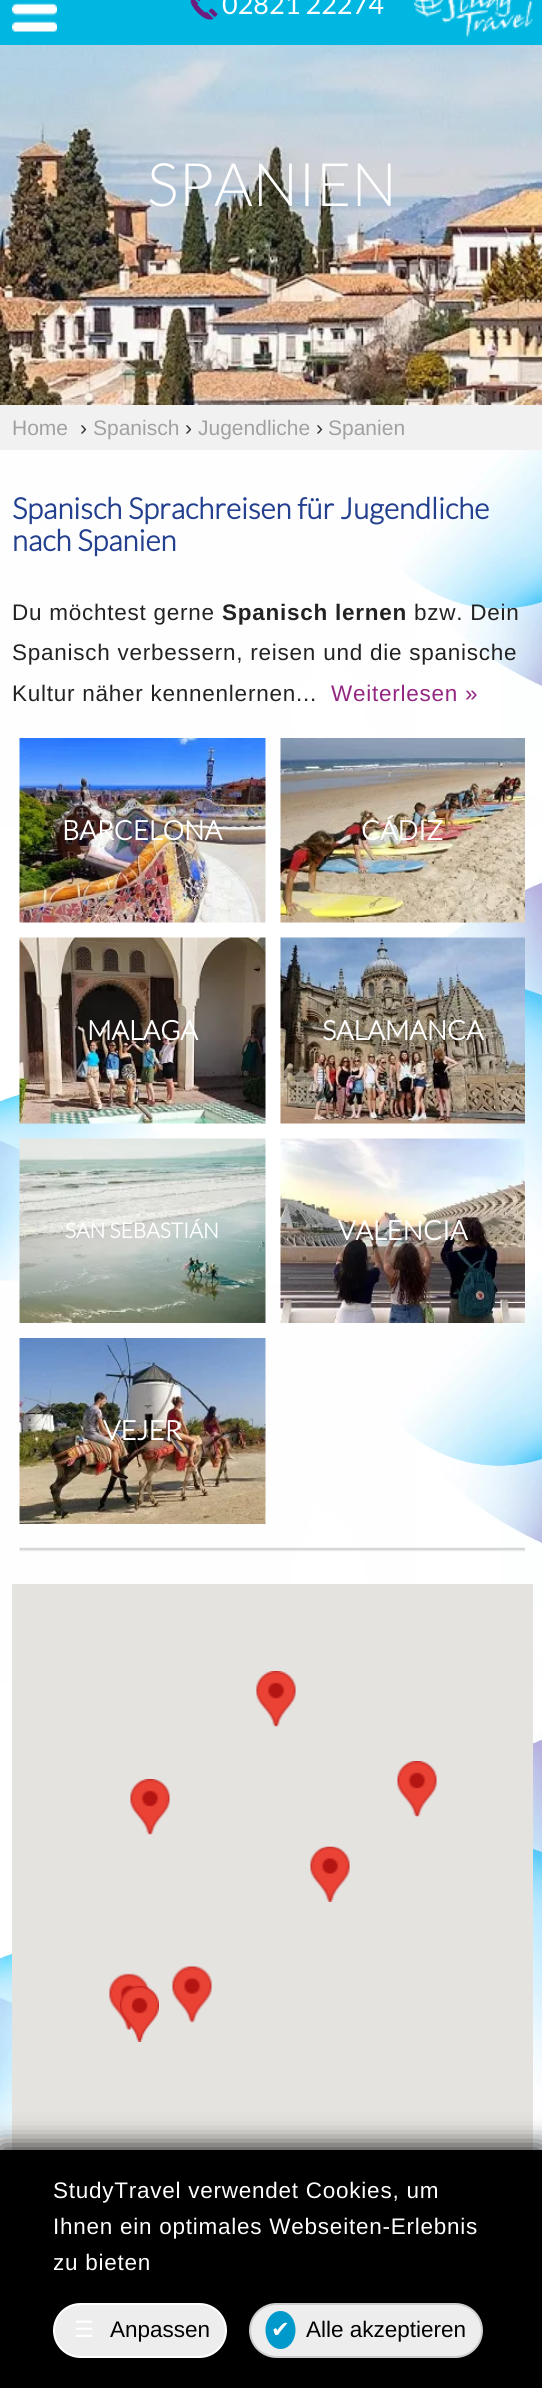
#include <cairo.h>
#include <math.h>
#include <stddef.h>


static void set_color(cairo_t *cr, unsigned color) {
    cairo_set_source_rgb(cr, (color >> 16) / 255.0, (color >> 8 & 255) / 255.0, (color & 255) / 255.0);
}

static void draw_text(cairo_t *cr, double x, double y, const char *s, const char *family, double size, int italic, int bold, unsigned color) {
    cairo_select_font_face(cr, family, italic ? CAIRO_FONT_SLANT_ITALIC : CAIRO_FONT_SLANT_NORMAL,
        bold ? CAIRO_FONT_WEIGHT_BOLD : CAIRO_FONT_WEIGHT_NORMAL);
    cairo_set_font_size(cr, size);
    set_color(cr, color);
    cairo_move_to(cr, x, y);
    cairo_show_text(cr, s);
}

static void draw_spaced(cairo_t *cr, double x, double y, const char *s, double letter, double word) {
    cairo_move_to(cr, x, y);
    while (*s) {
        char ch[5] = {0};
        int n = 0;
        do ch[n++] = *s++; while ((*s & 0xC0) == 0x80);
        cairo_show_text(cr, ch);
        cairo_rel_move_to(cr, letter + word * (*ch == ' '), 0);
    }
}

static void fill_rect(cairo_t *cr, double x, double y, double w, double h, unsigned color) {
    set_color(cr, color);
    cairo_rectangle(cr, x, y, w, h);
    cairo_fill(cr);
}

static void rounded_rect(cairo_t *cr, double x, double y, double w, double h, double r) {
    cairo_new_sub_path(cr);
    cairo_arc(cr, x + w - r, y + h - r, r, 0, M_PI / 2);
    cairo_arc(cr, x + r, y + h - r, r, M_PI / 2, M_PI);
    cairo_arc(cr, x + r, y + r, r, M_PI, 1.5 * M_PI);
    cairo_arc(cr, x + w - r, y + r, r, 1.5 * M_PI, 2 * M_PI);
    cairo_close_path(cr);
}

static void draw_shadow(cairo_t *cr, double x, double y, double w, double h, double r, double blur, double alpha) {
    cairo_push_group_with_content(cr, CAIRO_CONTENT_ALPHA);
    cairo_set_operator(cr, CAIRO_OPERATOR_SOURCE);
    for (int i = 15; i >= -15 && fmin(w, h) + blur * i / 3 > 0; i -= 2) {
        double e = blur * i / 6;
        cairo_set_source_rgba(cr, 0, 0, 0, alpha * erfc((i - 1) / 8.5) / 2);
        rounded_rect(cr, x - e, y - e, w + 2 * e, h + 2 * e, fmax(0, fmin(r + e + blur * .6, fmin(w, h) / 2 + e)));
        cairo_fill(cr);
    }
    cairo_pattern_t *soft = cairo_pop_group(cr);
    cairo_mask(cr, soft);
    cairo_pattern_destroy(soft);
}

static void draw_image(cairo_t *cr, const char *path, double x, double y, double w, double h) {
    cairo_surface_t *image = cairo_image_surface_create_from_png(path);
    cairo_save(cr);
    cairo_set_source_surface(cr, image, x, y);
    cairo_rectangle(cr, x, y, w, h);
    cairo_fill(cr);
    cairo_restore(cr);
    cairo_surface_destroy(image);
}

int main(void) {
    cairo_surface_t *surface = cairo_image_surface_create(CAIRO_FORMAT_RGB24, 542, 2388);
    cairo_t *cr = cairo_create(surface);
    cairo_font_options_t *options = cairo_font_options_create();
    cairo_font_options_set_hint_metrics(options, CAIRO_HINT_METRICS_OFF);
    cairo_font_options_set_hint_style(options, CAIRO_HINT_STYLE_NONE);
    cairo_set_font_options(cr, options);
    cairo_set_miter_limit(cr, 4);
    set_color(cr, 0xFFFFFF);
    cairo_paint(cr);
    draw_image(cr, "assets/img1.png", 0, 450, 542, 1700);
    fill_rect(cr, 0, 0, 542, 45, 0x00B7E2);
    draw_image(cr, "assets/img2.png", 12, 3, 45, 29);
    draw_image(cr, "assets/img3.png", 190, 0, 28, 20);
    draw_text(cr, 222, 14, "02821 22274", "Lato", 27, 0, 0, 0xFFFFFF);
    draw_image(cr, "assets/img4.png", 414, 0, 119, 38);
    draw_image(cr, "assets/img5.png", 0, 45, 542, 360);
    draw_text(cr, 147, 206, "SPANIEN", "Lato Light", 60, 0, 0, 0xFFFFFF);
    fill_rect(cr, 0, 405, 542, 45, 0xF1F1F1);
    draw_text(cr, 12, 435, "Home", "Liberation Sans", 21, 0, 0, 0xA0A1A3);
    draw_text(cr, 80, 435, "›", "Liberation Sans", 21, 0, 0, 0x333333);
    draw_text(cr, 93, 435, "Spanisch", "Liberation Sans", 21, 0, 0, 0xA0A1A3);
    draw_text(cr, 185, 435, "›", "Liberation Sans", 21, 0, 0, 0x333333);
    draw_text(cr, 198, 435, "Jugendliche", "Liberation Sans", 21, 0, 0, 0xA0A1A3);
    draw_text(cr, 316, 435, "›", "Liberation Sans", 21, 0, 0, 0x333333);
    draw_text(cr, 328, 435, "Spanien", "Liberation Sans", 21, 0, 0, 0xA0A1A3);
    draw_text(cr, 12, 519, "Spanisch Sprachreisen für Jugendliche", "Lato", 29.4, 0, 1, 0x23408F);
    draw_text(cr, 12, 551, "nach Spanien", "Lato", 29.4, 0, 1, 0x23408F);
    cairo_select_font_face(cr, "Liberation Sans", CAIRO_FONT_SLANT_NORMAL, CAIRO_FONT_WEIGHT_NORMAL);
    cairo_set_font_size(cr, 22.5);
    set_color(cr, 0x222222);
    draw_spaced(cr, 12, 620, "Du möchtest gerne", 0.75, 0);
    cairo_select_font_face(cr, "Liberation Sans", CAIRO_FONT_SLANT_NORMAL, CAIRO_FONT_WEIGHT_BOLD);
    draw_spaced(cr, 222, 620, "Spanisch lernen", 0.75, 0);
    cairo_select_font_face(cr, "Liberation Sans", CAIRO_FONT_SLANT_NORMAL, CAIRO_FONT_WEIGHT_NORMAL);
    draw_spaced(cr, 414, 620, "bzw. Dein", 0.75, 0);
    draw_spaced(cr, 12, 660, "Spanisch verbessern, reisen und die spanische", 0.75, 0);
    draw_spaced(cr, 12, 701, "Kultur näher kennenlernen...", 0.75, 0);
    set_color(cr, 0x932681);
    draw_spaced(cr, 331, 701, "Weiterlesen »", 0.75, 0);
    draw_image(cr, "assets/img6.png", 19, 738, 247, 185);
    draw_text(cr, 62, 840, "BARCELONA", "Lato", 27, 0, 1, 0xFFFFFF);
    draw_image(cr, "assets/img7.png", 280, 738, 245, 185);
    draw_text(cr, 361, 840, "CÁDIZ", "Lato", 27, 0, 1, 0xFFFFFF);
    draw_image(cr, "assets/img8.png", 19, 937, 247, 187);
    draw_text(cr, 87, 1040, "MALAGA", "Lato", 27, 0, 1, 0xFFFFFF);
    draw_image(cr, "assets/img9.png", 280, 937, 245, 187);
    draw_text(cr, 322, 1040, "SALAMANCA", "Lato", 27, 0, 1, 0xFFFFFF);
    draw_image(cr, "assets/img10.png", 19, 1138, 247, 185);
    draw_text(cr, 65, 1238, "SAN SEBASTIÁN", "Lato", 21, 0, 1, 0xFFFFFF);
    draw_image(cr, "assets/img11.png", 280, 1138, 245, 185);
    draw_text(cr, 338, 1240, "VALENCIA", "Lato", 27, 0, 1, 0xFFFFFF);
    draw_image(cr, "assets/img12.png", 19, 1338, 247, 186);
    draw_text(cr, 103, 1440, "VEJER", "Lato", 27, 0, 1, 0xFFFFFF);
    draw_image(cr, "assets/img13.png", 19, 1547, 506, 5);
    fill_rect(cr, 12, 1584, 521, 566, 0xE5E3DF);
    draw_image(cr, "assets/img14.png", 256, 1671, 40, 56);
    draw_image(cr, "assets/img15.png", 130, 1779, 40, 56);
    draw_image(cr, "assets/img16.png", 397, 1761, 40, 56);
    draw_image(cr, "assets/img17.png", 310, 1846, 40, 56);
    draw_image(cr, "assets/img18.png", 109, 1973, 40, 57);
    draw_image(cr, "assets/img19.png", 172, 1966, 40, 57);
    draw_image(cr, "assets/img20.png", 120, 1986, 39, 56);
    set_color(cr, 0x000000);
    draw_shadow(cr, 0, 2145, 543, 239, 0, 13, 0.8);
    fill_rect(cr, 0, 2150, 542, 238, 0x000000);
    cairo_select_font_face(cr, "Liberation Sans", CAIRO_FONT_SLANT_NORMAL, CAIRO_FONT_WEIGHT_NORMAL);
    cairo_set_font_size(cr, 22.5);
    set_color(cr, 0xFFFFFF);
    draw_spaced(cr, 53, 2198, "StudyTravel verwendet Cookies, um", 0.75, 0);
    draw_spaced(cr, 53, 2234, "Ihnen ein optimales Webseiten-Erlebnis", 0.75, 0);
    draw_spaced(cr, 53, 2270, "zu bieten", 0.75, 0);
    set_color(cr, 0xEDEDED);
    rounded_rect(cr, 54, 2304, 172, 53, 26.5);
    cairo_fill_preserve(cr);
    set_color(cr, 0xFFFFFF);
    cairo_stroke(cr);
    draw_text(cr, 74, 2337, "☰", "DejaVu Sans", 22.5, 0, 0, 0xFFFFFF);
    draw_text(cr, 110, 2337, "Anpassen", "Liberation Sans", 22.5, 0, 0, 0x000000);
    set_color(cr, 0xEDEDED);
    rounded_rect(cr, 250, 2304, 232, 53, 26.5);
    cairo_fill_preserve(cr);
    set_color(cr, 0xCCCCCC);
    cairo_stroke(cr);
    set_color(cr, 0x0099CC);
    cairo_new_path(cr);
    cairo_move_to(cr, 280.5, 2311);
    cairo_curve_to(cr, 289, 2311, 295.5, 2319.5, 295.5, 2330);
    cairo_curve_to(cr, 295.5, 2340.5, 289, 2349, 280.5, 2349);
    cairo_curve_to(cr, 272, 2349, 265.5, 2340.5, 265.5, 2330);
    cairo_curve_to(cr, 265.5, 2319.5, 272, 2311, 280.5, 2311);
    cairo_close_path(cr);
    cairo_fill(cr);
    draw_text(cr, 271, 2337, "✔", "DejaVu Sans", 22.5, 0, 0, 0xFFFFFF);
    draw_text(cr, 306, 2337, "Alle akzeptieren", "Liberation Sans", 22.5, 0, 0, 0x000000);
    cairo_surface_write_to_png(surface, "output.png");
    cairo_font_options_destroy(options);
    cairo_destroy(cr);
    cairo_surface_destroy(surface);
    return 0;
}
